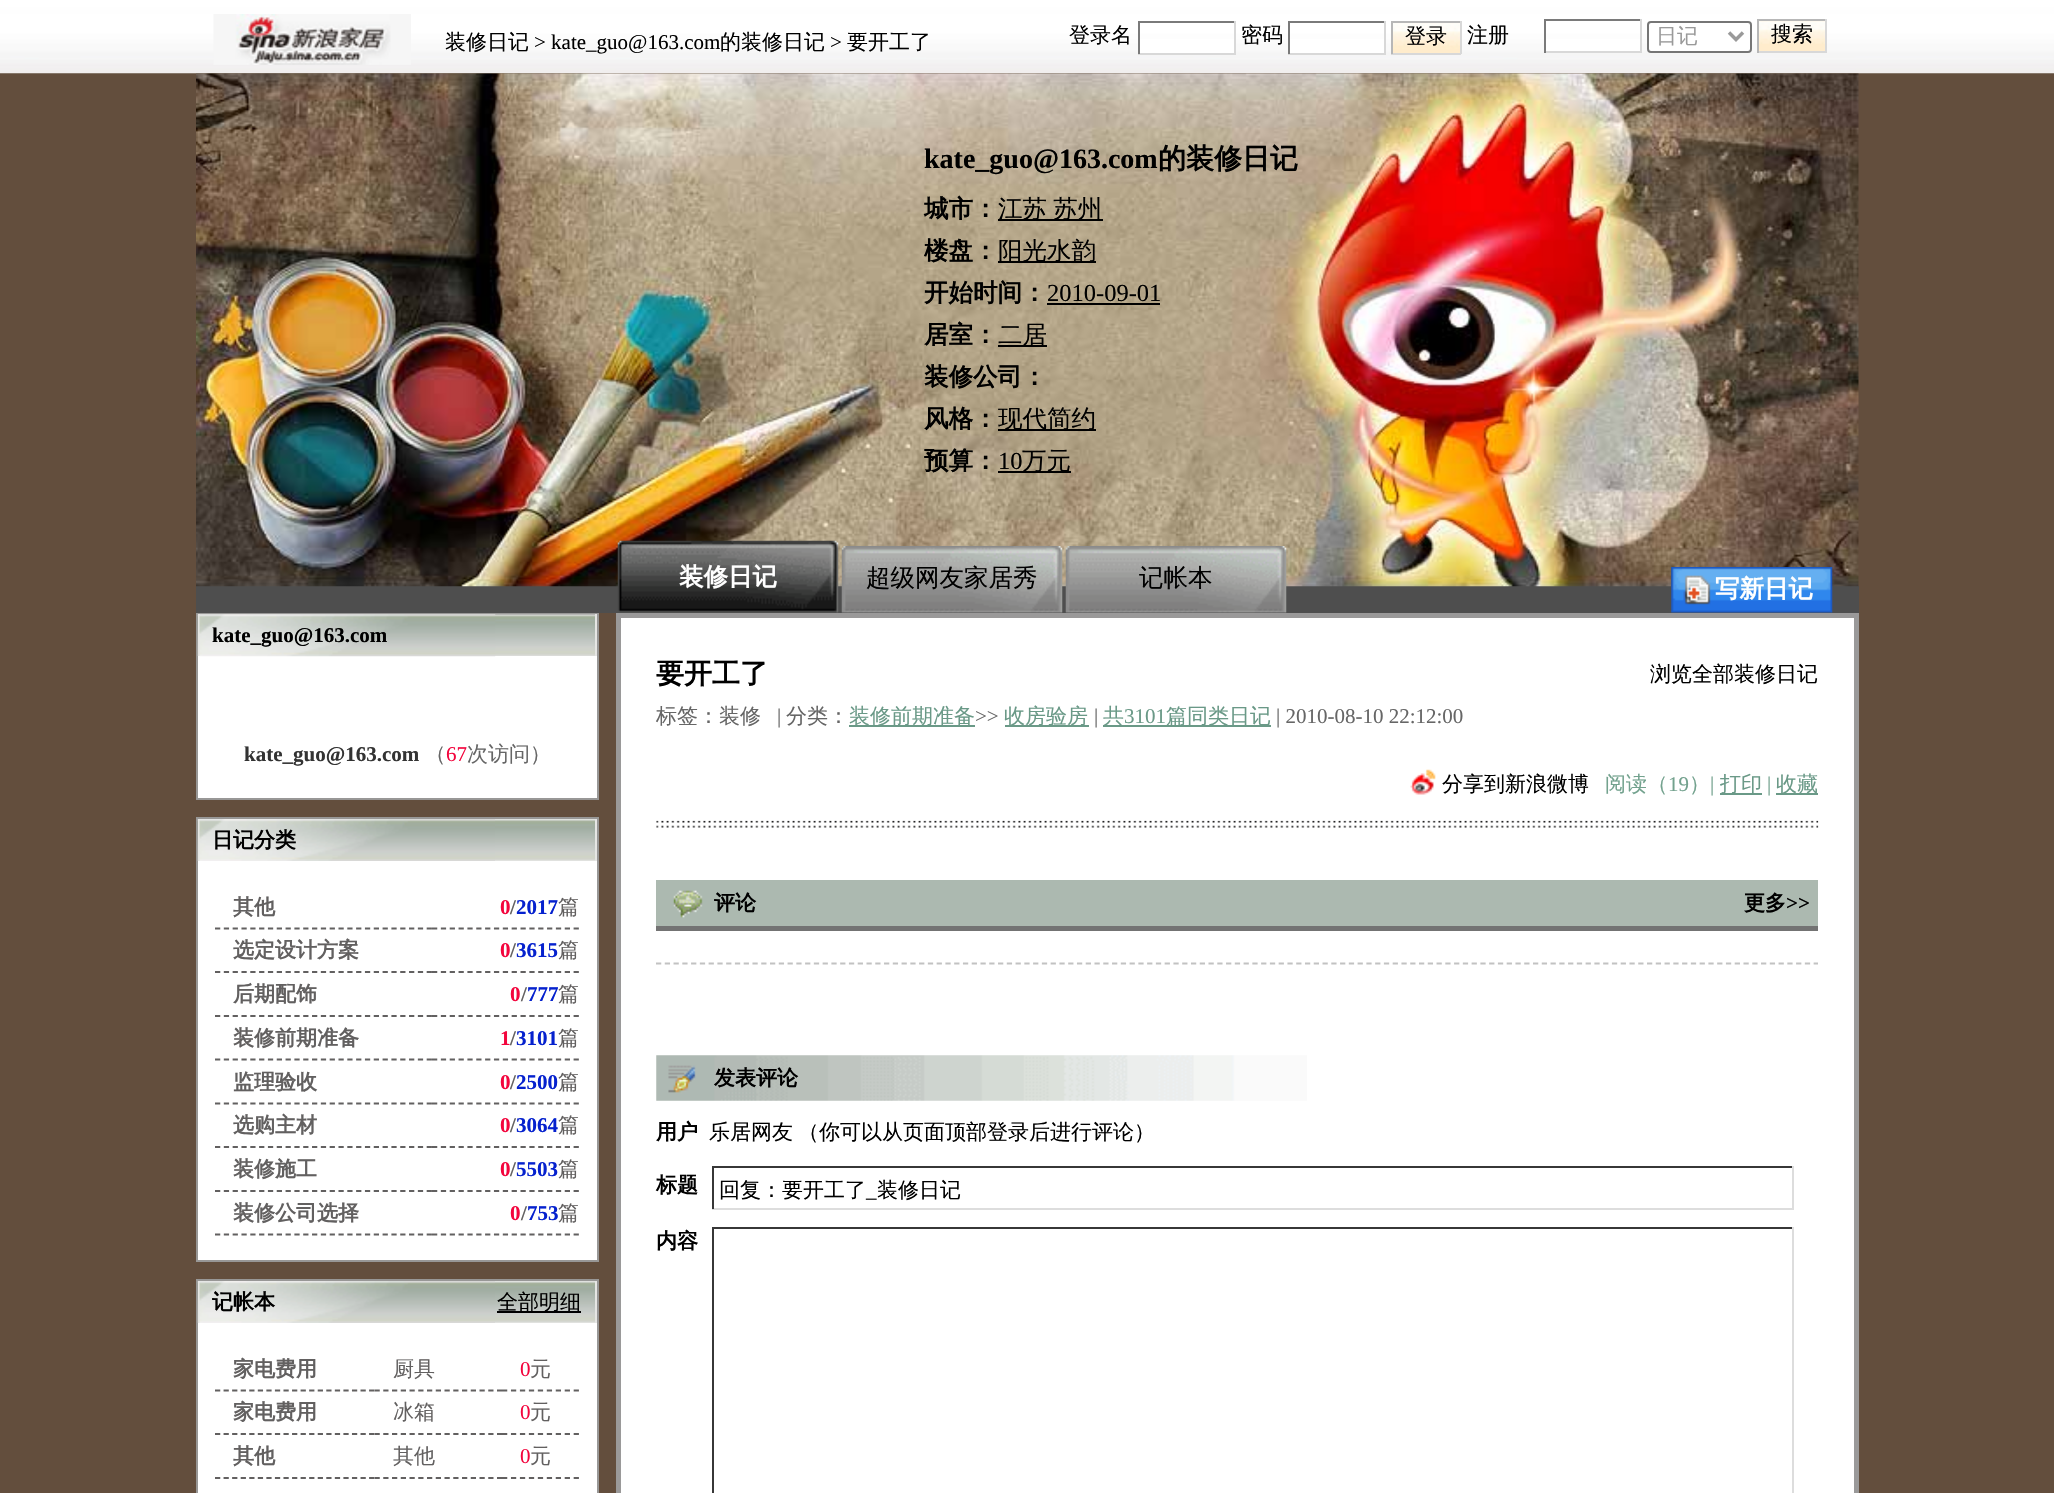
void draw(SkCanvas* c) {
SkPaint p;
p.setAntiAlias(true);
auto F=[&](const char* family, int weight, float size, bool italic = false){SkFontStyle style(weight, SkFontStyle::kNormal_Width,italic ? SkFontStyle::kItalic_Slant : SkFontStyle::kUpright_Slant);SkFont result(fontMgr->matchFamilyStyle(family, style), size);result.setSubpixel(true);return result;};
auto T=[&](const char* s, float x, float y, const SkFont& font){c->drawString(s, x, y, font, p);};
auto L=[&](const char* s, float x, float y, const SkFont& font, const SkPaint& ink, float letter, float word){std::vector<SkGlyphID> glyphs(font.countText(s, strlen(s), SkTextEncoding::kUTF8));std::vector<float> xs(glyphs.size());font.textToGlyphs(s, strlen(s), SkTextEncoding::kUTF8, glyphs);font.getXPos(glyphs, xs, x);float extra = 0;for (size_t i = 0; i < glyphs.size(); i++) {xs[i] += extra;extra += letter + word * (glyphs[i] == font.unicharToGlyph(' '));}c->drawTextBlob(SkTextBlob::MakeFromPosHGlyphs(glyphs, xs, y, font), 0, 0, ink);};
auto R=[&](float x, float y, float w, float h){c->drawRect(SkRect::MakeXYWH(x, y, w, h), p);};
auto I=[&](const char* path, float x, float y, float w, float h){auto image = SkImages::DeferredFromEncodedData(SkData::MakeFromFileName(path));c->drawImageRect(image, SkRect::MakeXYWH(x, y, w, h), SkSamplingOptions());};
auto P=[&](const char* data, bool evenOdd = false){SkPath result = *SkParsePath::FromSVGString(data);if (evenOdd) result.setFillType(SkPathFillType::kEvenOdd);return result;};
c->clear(0xff634e3d);
I("1.png",0,0,2054,74);
I("2.png",213,14,198,51);
auto f1 = F("WenQuanYi Zen Hei",500,21);
p.setColor(0xff000000);
T("装修日记",445,49,f1);
auto f2 = F("Liberation Serif",400,21);
T("> kate_guo@163.com",534,49,f2);
T("的装修日记",720,49,f1);
T(">",830,49,f2);
T("要开工了",847,49,f1);
T("登录名",1069,42,f1);
p.setColor(0xffffffff);
R(1140,39,94,14);
p.setColor(0xff7a7a7a);
R(1138,21,98,2);
p.setColor(0xffd8d8d8);
R(1234,21,2,33);
R(1138,53,98,2);
p.setColor(0xff7a7a7a);
R(1138,21,2,33);
p.setColor(0xff000000);
T("密码",1241,42,f1);
p.setColor(0xffffffff);
R(1290,39,94,14);
p.setColor(0xff7a7a7a);
R(1288,21,98,2);
p.setColor(0xffd8d8d8);
R(1384,21,2,33);
R(1288,53,98,2);
p.setColor(0xff7a7a7a);
R(1288,21,2,33);
p.setColor(0xffffeccc);
R(1393,23,67,30);
I("3.png",1393,23,67,26);
p.setColor(0xffb7b7b7);
R(1391,21,70,2);
p.setColor(0xffd8d8d8);
R(1460,21,2,33);
R(1391,53,70,2);
p.setColor(0xffb7b7b7);
R(1391,21,2,33);
p.setColor(0xff000000);
T("登录",1405,43,f1);
T("注册",1467,42,f1);
p.setColor(0xffffffff);
R(1546,39,94,12);
p.setColor(0xff7a7a7a);
R(1544,19,98,2);
p.setColor(0xffd8d8d8);
R(1640,19,2,34);
R(1544,51,98,2);
p.setColor(0xff7a7a7a);
R(1544,19,2,34);
p.setColor(0xffffffff);
c->drawRoundRect(SkRect::MakeXYWH(1648,22,103,30),3,3,p);
p.setStroke(true);
p.setStrokeWidth(2);
p.setColor(0xff767676);
c->drawRoundRect(SkRect::MakeXYWH(1648,22,103,30),3,3,p);
p.setStrokeWidth(3.5);
p.setColor(0xff9a9a9a);
c->drawPath(P("M1729 32.5l7 7l7-7"),p);
p.setStroke(false);
T("日记",1656,43,f1);
p.setColor(0xffffeccc);
R(1759,21,66,30);
I("4.png",1759,21,66,23);
p.setColor(0xffb7b7b7);
R(1757,19,70,2);
p.setColor(0xffd8d8d8);
R(1825,19,2,34);
R(1757,51,70,2);
p.setColor(0xffb7b7b7);
R(1757,19,2,34);
p.setColor(0xff000000);
T("搜索",1771,41,f1);
p.setColor(0xff4e4e4e);
R(196,586,1663,27);
I("5.png",196,73,1663,514);
auto f3 = F("Liberation Serif",700,28);
p.setColor(0xff000000);
T("kate_guo@163.com",924,168,f3);
auto f4 = F("WenQuanYi Zen Hei",700,28);
T("的装修日记",1158,168,f4);
auto f5 = F("WenQuanYi Zen Hei",700,24.5);
T("城市：",924,217,f5);
R(998,219,105,2);
auto f6 = F("WenQuanYi Zen Hei",500,24.5);
L("江苏 苏州",998,217,f6,p,0,-1);
T("楼盘：",924,259,f5);
R(998,261,98,2);
T("阳光水韵",998,259,f6);
T("开始时间：",924,301,f5);
auto f7 = F("Liberation Serif",400,24.5);
T("2010-09-01",1047,301,f7);
R(1047,303,113,2);
T("居室：",924,343,f5);
R(998,345,49,2);
T("二居",998,343,f6);
T("装修公司：",924,385,f5);
T("风格：",924,427,f5);
R(998,429,98,2);
T("现代简约",998,427,f6);
T("预算：",924,469,f5);
T("10",998,469,f7);
R(998,471,73,2);
T("万元",1022,469,f6);
I("6.png",617,540,222,73);
p.setColor(0xffffffff);
T("装修日记",679,585,f5);
I("7.png",841,546,222,67);
p.setColor(0xff000000);
T("超级网友家居秀",866,586,f6);
I("8.png",1065,546,222,67);
T("记帐本",1139,586,f6);
p.setColor(0xff4d4e4d);
R(1671,567,161,20);
I("9.png",1671,567,162,46);
p.setColor(0xffffffff);
T("写新日记",1715,597,f5);
R(198,655,399,143);
p.setStroke(true);
p.setStrokeWidth(2);
p.setColor(0xff989796);
c->drawRect(SkRect::MakeXYWH(197,614,401,185),p);
I("10.png",197,614,398,42);
p.setStroke(false);
p.setColor(0xffe6e6e4);
R(595,614,2,42);
R(198,614,2,42);
I("11.png",199,614,297,43);
auto f8 = F("Liberation Serif",700,21);
p.setColor(0xff000000);
T("kate_guo@163.com",212,642,f8);
p.setColor(0xff333333);
T("kate_guo@163.com",244,761,f8);
p.setColor(0xff666666);
T("（",425,761,f1);
p.setColor(0xfff3053d);
T("67",446,761,f2);
p.setColor(0xff666666);
T("次访问）",467,761,f1);
p.setColor(0xffffffff);
c->drawRect(SkRect::MakeXYWH(197,818,401,443),p);
p.setStroke(true);
p.setColor(0xff989796);
c->drawRect(SkRect::MakeXYWH(197,818,401,443),p);
I("12.png",197,819,398,42);
p.setStroke(false);
p.setColor(0xffe6e6e4);
R(595,819,2,42);
R(198,819,2,42);
I("13.png",199,819,296,42);
auto f9 = F("WenQuanYi Zen Hei",700,21);
p.setColor(0xff000000);
T("日记分类",212,847,f9);
p.setStroke(true);
p.setStrokeWidth(1.8);
p.setColor(0xff626060);
p.setPathEffect(SkDashPathEffect::Make({{5.25f,3.57f}}, 0));
c->drawPath(P("M215 928.5h217"),p);
p.setPathEffect(nullptr);
p.setStroke(false);
T("其他",233,914,f9);
p.setStroke(true);
p.setPathEffect(SkDashPathEffect::Make({{5.25f,3.6f}}, 0));
c->drawPath(P("M432 928.5h147"),p);
p.setPathEffect(nullptr);
p.setStroke(false);
p.setColor(0xfff3053d);
T("0",500,914,f8);
p.setColor(0xff626060);
T("/",510,914,f8);
p.setColor(0xff0521ce);
T("2017",516,914,f8);
p.setColor(0xff626060);
T("篇",558,914,f1);
p.setStroke(true);
p.setPathEffect(SkDashPathEffect::Make({{5.25f,3.57f}}, 0));
c->drawPath(P("M215 972h217"),p);
p.setPathEffect(nullptr);
p.setStroke(false);
T("选定设计方案",233,957,f9);
p.setStroke(true);
p.setPathEffect(SkDashPathEffect::Make({{5.25f,3.6f}}, 0));
c->drawPath(P("M432 972h147"),p);
p.setPathEffect(nullptr);
p.setStroke(false);
p.setColor(0xfff3053d);
T("0",500,957,f8);
p.setColor(0xff626060);
T("/",510,957,f8);
p.setColor(0xff0521ce);
T("3615",516,957,f8);
p.setColor(0xff626060);
T("篇",558,957,f1);
p.setStroke(true);
p.setPathEffect(SkDashPathEffect::Make({{5.25f,3.57f}}, 0));
c->drawPath(P("M215 1016h217"),p);
p.setPathEffect(nullptr);
p.setStroke(false);
T("后期配饰",233,1001,f9);
p.setStroke(true);
p.setPathEffect(SkDashPathEffect::Make({{5.25f,3.6f}}, 0));
c->drawPath(P("M432 1016h147"),p);
p.setPathEffect(nullptr);
p.setStroke(false);
p.setColor(0xfff3053d);
T("0",510,1001,f8);
p.setColor(0xff626060);
T("/",521,1001,f8);
p.setColor(0xff0521ce);
T("777",527,1001,f8);
p.setColor(0xff626060);
T("篇",558,1001,f1);
p.setStroke(true);
p.setPathEffect(SkDashPathEffect::Make({{5.25f,3.57f}}, 0));
c->drawPath(P("M215 1059.5h217"),p);
p.setPathEffect(nullptr);
p.setStroke(false);
T("装修前期准备",233,1045,f9);
p.setStroke(true);
p.setPathEffect(SkDashPathEffect::Make({{5.25f,3.6f}}, 0));
c->drawPath(P("M432 1059.5h147"),p);
p.setPathEffect(nullptr);
p.setStroke(false);
p.setColor(0xfff3053d);
T("1",500,1045,f8);
p.setColor(0xff626060);
T("/",510,1045,f8);
p.setColor(0xff0521ce);
T("3101",516,1045,f8);
p.setColor(0xff626060);
T("篇",558,1045,f1);
p.setStroke(true);
p.setPathEffect(SkDashPathEffect::Make({{5.25f,3.57f}}, 0));
c->drawPath(P("M215 1103.5h217"),p);
p.setPathEffect(nullptr);
p.setStroke(false);
T("监理验收",233,1089,f9);
p.setStroke(true);
p.setPathEffect(SkDashPathEffect::Make({{5.25f,3.6f}}, 0));
c->drawPath(P("M432 1103.5h147"),p);
p.setPathEffect(nullptr);
p.setStroke(false);
p.setColor(0xfff3053d);
T("0",500,1089,f8);
p.setColor(0xff626060);
T("/",510,1089,f8);
p.setColor(0xff0521ce);
T("2500",516,1089,f8);
p.setColor(0xff626060);
T("篇",558,1089,f1);
p.setStroke(true);
p.setPathEffect(SkDashPathEffect::Make({{5.25f,3.57f}}, 0));
c->drawPath(P("M215 1147h217"),p);
p.setPathEffect(nullptr);
p.setStroke(false);
T("选购主材",233,1132,f9);
p.setStroke(true);
p.setPathEffect(SkDashPathEffect::Make({{5.25f,3.6f}}, 0));
c->drawPath(P("M432 1147h147"),p);
p.setPathEffect(nullptr);
p.setStroke(false);
p.setColor(0xfff3053d);
T("0",500,1132,f8);
p.setColor(0xff626060);
T("/",510,1132,f8);
p.setColor(0xff0521ce);
T("3064",516,1132,f8);
p.setColor(0xff626060);
T("篇",558,1132,f1);
p.setStroke(true);
p.setPathEffect(SkDashPathEffect::Make({{5.25f,3.57f}}, 0));
c->drawPath(P("M215 1191h217"),p);
p.setPathEffect(nullptr);
p.setStroke(false);
T("装修施工",233,1176,f9);
p.setStroke(true);
p.setPathEffect(SkDashPathEffect::Make({{5.25f,3.6f}}, 0));
c->drawPath(P("M432 1191h147"),p);
p.setPathEffect(nullptr);
p.setStroke(false);
p.setColor(0xfff3053d);
T("0",500,1176,f8);
p.setColor(0xff626060);
T("/",510,1176,f8);
p.setColor(0xff0521ce);
T("5503",516,1176,f8);
p.setColor(0xff626060);
T("篇",558,1176,f1);
p.setStroke(true);
p.setPathEffect(SkDashPathEffect::Make({{5.25f,3.57f}}, 0));
c->drawPath(P("M215 1234.5h217"),p);
p.setPathEffect(nullptr);
p.setStroke(false);
T("装修公司选择",233,1220,f9);
p.setStroke(true);
p.setPathEffect(SkDashPathEffect::Make({{5.25f,3.6f}}, 0));
c->drawPath(P("M432 1234.5h147"),p);
p.setPathEffect(nullptr);
p.setStroke(false);
p.setColor(0xfff3053d);
T("0",510,1220,f8);
p.setColor(0xff626060);
T("/",521,1220,f8);
p.setColor(0xff0521ce);
T("753",527,1220,f8);
p.setColor(0xff626060);
T("篇",558,1220,f1);
p.setColor(0xffffffff);
c->drawRect(SkRect::MakeXYWH(197,1280,401,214),p);
p.setStroke(true);
p.setStrokeWidth(2);
p.setColor(0xff989796);
c->drawRect(SkRect::MakeXYWH(197,1280,401,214),p);
I("14.png",197,1281,398,42);
p.setStroke(false);
p.setColor(0xffe6e6e4);
R(595,1281,2,42);
R(198,1281,2,42);
I("13.png",199,1281,296,42);
p.setColor(0xff000000);
T("记帐本",212,1309,f9);
R(497,1311,84,2);
T("全部明细",497,1309,f1);
p.setStroke(true);
p.setStrokeWidth(1.8);
p.setColor(0xff626060);
p.setPathEffect(SkDashPathEffect::Make({{5.25f,3.31f}}, 0));
c->drawPath(P("M215 1390.5h159.5"),p);
p.setPathEffect(nullptr);
p.setStroke(false);
T("家电费用",233,1376,f9);
p.setStroke(true);
p.setPathEffect(SkDashPathEffect::Make({{5.25f,3.5f}}, 0));
c->drawPath(P("M374.5 1390.5h127.5"),p);
p.setPathEffect(nullptr);
p.setStroke(false);
T("厨具",393,1376,f1);
p.setStroke(true);
p.setPathEffect(SkDashPathEffect::Make({{5.25f,3.71f}}, 0));
c->drawPath(P("M502 1390.5h77"),p);
p.setPathEffect(nullptr);
p.setStroke(false);
p.setColor(0xfff3053d);
T("0",520,1376,f2);
p.setColor(0xff626060);
T("元",530,1376,f1);
p.setStroke(true);
p.setPathEffect(SkDashPathEffect::Make({{5.25f,3.31f}}, 0));
c->drawPath(P("M215 1434h159.5"),p);
p.setPathEffect(nullptr);
p.setStroke(false);
T("家电费用",233,1419,f9);
p.setStroke(true);
p.setPathEffect(SkDashPathEffect::Make({{5.25f,3.5f}}, 0));
c->drawPath(P("M374.5 1434h127.5"),p);
p.setPathEffect(nullptr);
p.setStroke(false);
T("冰箱",393,1419,f1);
p.setStroke(true);
p.setPathEffect(SkDashPathEffect::Make({{5.25f,3.71f}}, 0));
c->drawPath(P("M502 1434h77"),p);
p.setPathEffect(nullptr);
p.setStroke(false);
p.setColor(0xfff3053d);
T("0",520,1419,f2);
p.setColor(0xff626060);
T("元",530,1419,f1);
p.setStroke(true);
p.setPathEffect(SkDashPathEffect::Make({{5.25f,3.31f}}, 0));
c->drawPath(P("M215 1478h159.5"),p);
p.setPathEffect(nullptr);
p.setStroke(false);
T("其他",233,1463,f9);
p.setStroke(true);
p.setPathEffect(SkDashPathEffect::Make({{5.25f,3.5f}}, 0));
c->drawPath(P("M374.5 1478h127.5"),p);
p.setPathEffect(nullptr);
p.setStroke(false);
T("其他",393,1463,f1);
p.setStroke(true);
p.setPathEffect(SkDashPathEffect::Make({{5.25f,3.71f}}, 0));
c->drawPath(P("M502 1478h77"),p);
p.setPathEffect(nullptr);
p.setStroke(false);
p.setColor(0xfff3053d);
T("0",520,1463,f2);
p.setColor(0xff626060);
T("元",530,1463,f1);
p.setColor(0xffffffff);
c->drawRect(SkRect::MakeXYWH(618.5,615.5,1238,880),p);
p.setStroke(true);
p.setStrokeWidth(5);
p.setColor(0xff9a9999);
c->drawRect(SkRect::MakeXYWH(618.5,615.5,1238,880),p);
p.setStroke(false);
p.setColor(0xff000000);
T("要开工了",656,683,f4);
T("浏览全部装修日记",1650,681,f1);
p.setColor(0xff666666);
T("标签：装修",656,723,f1);
T("|",777,723,f2);
T("分类：",786,723,f1);
p.setColor(0xff6a9987);
R(849,725,126,2);
T("装修前期准备",849,723,f1);
p.setColor(0xff666666);
T(">>",975,723,f2);
p.setColor(0xff6a9987);
R(1005,725,84,2);
T("收房验房",1004,723,f1);
p.setColor(0xff666666);
T("|",1094,723,f2);
p.setColor(0xff6a9987);
R(1103,725,168,2);
T("共",1103,723,f1);
T("3101",1124,723,f2);
T("篇同类日记",1166,723,f1);
p.setColor(0xff666666);
T("| 2010-08-10 22:12:00",1276,723,f2);
I("15.png",1410,769,26,26);
p.setColor(0xff000000);
T("分享到新浪微博",1442,791,f1);
p.setColor(0xff73a28e);
T("阅读（",1605,791,f1);
T("19",1668,791,f2);
T("）",1689,791,f1);
T("|",1710,791,f2);
p.setColor(0xff6a9987);
R(1720,793,42,2);
T("打印",1720,791,f1);
p.setColor(0xff73a28e);
T("|",1767,791,f2);
p.setColor(0xff6a9987);
R(1776,793,42,2);
T("收藏",1776,791,f1);
I("16.png",656,820,1163,8);
p.setColor(0xffacb9b0);
R(656,880,1162,46);
I("17.png",673,890,30,28);
p.setColor(0xff737373);
R(656,926,1162,5);
p.setColor(0xff000000);
T("评论",714,910,f9);
T("更多",1744,910,f9);
T(">>",1786,910,f8);
p.setStroke(true);
p.setStrokeWidth(1.8);
p.setColor(0xffc2c2c2);
p.setPathEffect(SkDashPathEffect::Make({{5.25f,3.52f}}, 0));
c->drawPath(P("M656 963.5h1162"),p);
p.setPathEffect(nullptr);
I("18.png",656,1055,651,46);
p.setStroke(false);
p.setColor(0xff000000);
T("发表评论",714,1085,f9);
T("用户",656,1139,f9);
T("乐居网友",709,1139,f1);
T("（你可以从页面顶部登录后进行评论）",798,1139,f1);
T("标题",656,1192,f9);
p.setColor(0xff373737);
R(712,1166,1082,2);
p.setColor(0xffdddddd);
R(1792,1166,2,43);
R(712,1208,1082,2);
p.setColor(0xff373737);
R(712,1166,2,43);
p.setColor(0xff000000);
T("回复：要开工了",719,1197,f1);
T("_",866,1197,f2);
T("装修日记",877,1197,f1);
T("内容",656,1248,f9);
p.setColor(0xff373737);
R(712,1227,1082,2);
p.setColor(0xffdddddd);
R(1792,1227,2,266);
p.setColor(0xff373737);
R(712,1227,2,266);
}
